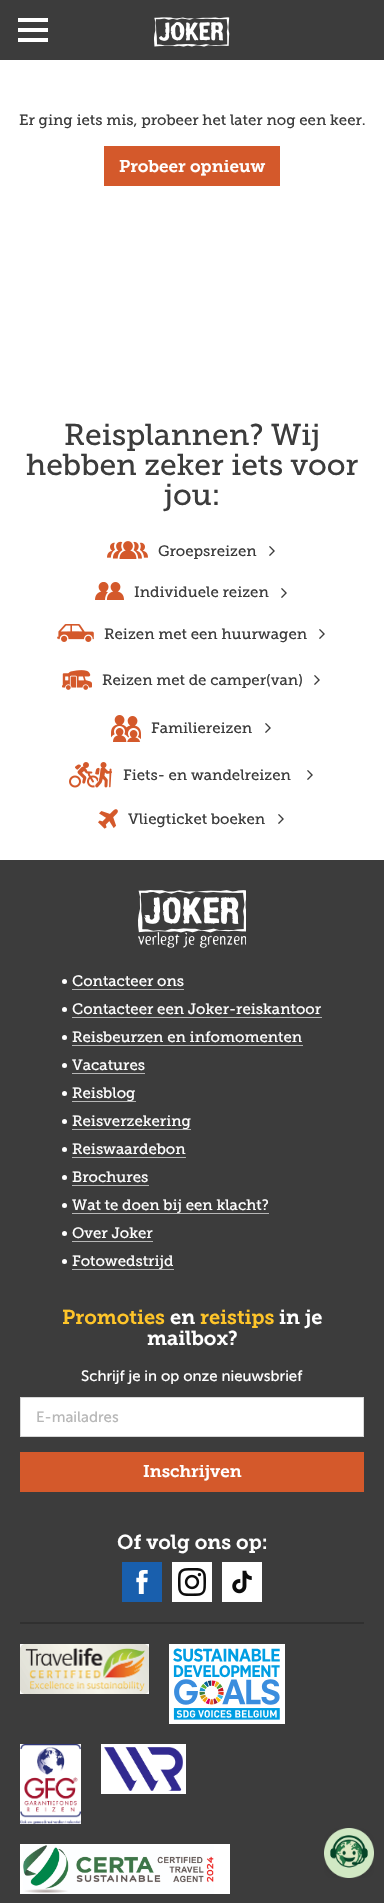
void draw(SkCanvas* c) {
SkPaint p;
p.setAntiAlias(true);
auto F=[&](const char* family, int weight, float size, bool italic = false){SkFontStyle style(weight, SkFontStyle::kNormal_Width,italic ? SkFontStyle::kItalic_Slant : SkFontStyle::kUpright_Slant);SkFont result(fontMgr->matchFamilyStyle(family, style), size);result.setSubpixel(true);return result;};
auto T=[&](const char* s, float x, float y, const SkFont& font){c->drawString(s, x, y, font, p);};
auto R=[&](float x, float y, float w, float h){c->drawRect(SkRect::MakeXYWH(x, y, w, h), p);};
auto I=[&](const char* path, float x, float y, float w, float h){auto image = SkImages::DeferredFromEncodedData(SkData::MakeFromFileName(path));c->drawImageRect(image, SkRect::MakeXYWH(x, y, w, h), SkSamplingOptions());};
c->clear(0xffffffff);
p.setColor(0xff3c3c3c);
R(0,0,384,60);
p.setColor(0xffffffff);
R(18,18,30,4);
R(18,28,30,4);
R(18,38,30,4);
I("1.png",154,17,76,30);
auto f1 = F("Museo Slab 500",400,15);
p.setColor(0xff3c3c3c);
T("Er ging iets mis, probeer het later nog een keer.",19,125,f1);
p.setColor(0xffd4592b);
R(104,146,176,40);
auto f2 = F("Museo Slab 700",600,17);
p.setColor(0xffffffff);
T("Probeer opnieuw",119,172,f2);
auto f3 = F("Museo Slab 500",400,30);
p.setColor(0xff3c3c3c);
T("Reisplannen? Wij",64,445,f3);
T("hebben zeker iets voor",26,475,f3);
T("jou:",164,505,f3);
I("2.png",107,541,41,18);
T("Groepsreizen",158,556,f1);
I("3.png",269,546,6,10);
I("4.png",95,582,29,18);
T("Individuele reizen",134,597,f1);
I("3.png",281,588,6,10);
I("5.png",57,624,37,18);
T("Reizen met een huurwagen",104,639,f1);
I("3.png",319,629,6,10);
I("6.png",62,670,30,20);
T("Reizen met de camper(van)",102,685,f1);
I("3.png",314,675,6,10);
I("7.png",111,715,30,27);
T("Familiereizen",151,733,f1);
I("3.png",265,723,6,10);
I("8.png",69,762,43,26);
T("Fiets- en wandelreizen",123,780,f1);
I("3.png",307,770,6,10);
I("9.png",98,809,20,20);
T("Vliegticket boeken",128,824,f1);
I("3.png",278,814,6,10);
R(0,860,384,1043);
I("10.png",138,890,108,58);
p.setColor(0xffffffff);
c->drawCircle(64.5,981.5,2.5,p);
T("Contacteer ons",72,986,f1);
p.setColor(0xffb7b7b7);
R(72,989,112,1);
p.setColor(0xffffffff);
c->drawCircle(64.5,1009.5,2.5,p);
T("Contacteer een Joker-reiskantoor",72,1014,f1);
p.setColor(0xffb7b7b7);
R(72,1017,250,1);
p.setColor(0xffffffff);
c->drawCircle(64.5,1037.5,2.5,p);
T("Reisbeurzen en infomomenten",72,1042,f1);
p.setColor(0xffb7b7b7);
R(72,1045,231,1);
p.setColor(0xffffffff);
c->drawCircle(64.5,1065.5,2.5,p);
T("Vacatures",72,1070,f1);
p.setColor(0xffb7b7b7);
R(72,1073,73,1);
p.setColor(0xffffffff);
c->drawCircle(64.5,1093.5,2.5,p);
T("Reisblog",72,1098,f1);
p.setColor(0xffb7b7b7);
R(72,1101,64,1);
p.setColor(0xffffffff);
c->drawCircle(64.5,1121.5,2.5,p);
T("Reisverzekering",72,1126,f1);
p.setColor(0xffb7b7b7);
R(72,1129,119,1);
p.setColor(0xffffffff);
c->drawCircle(64.5,1149.5,2.5,p);
T("Reiswaardebon",72,1154,f1);
p.setColor(0xffb7b7b7);
R(72,1157,114,1);
p.setColor(0xffffffff);
c->drawCircle(64.5,1177.5,2.5,p);
T("Brochures",72,1182,f1);
p.setColor(0xffb7b7b7);
R(72,1185,77,1);
p.setColor(0xffffffff);
c->drawCircle(64.5,1205.5,2.5,p);
T("Wat te doen bij een klacht?",72,1210,f1);
p.setColor(0xffb7b7b7);
R(72,1213,197,1);
p.setColor(0xffffffff);
c->drawCircle(64.5,1233.5,2.5,p);
T("Over Joker",72,1238,f1);
p.setColor(0xffb7b7b7);
R(72,1241,81,1);
p.setColor(0xffffffff);
c->drawCircle(64.5,1261.5,2.5,p);
T("Fotowedstrijd",72,1266,f1);
p.setColor(0xffb7b7b7);
R(72,1269,102,1);
auto f4 = F("Museo Slab 700",600,20);
p.setColor(0xffffc529);
T("Promoties",62,1324,f4);
p.setColor(0xffffffff);
T("en",170,1324,f4);
p.setColor(0xffffc529);
T("reistips",200,1324,f4);
p.setColor(0xffffffff);
T("in je",279,1324,f4);
T("mailbox?",147,1345,f4);
auto f5 = F("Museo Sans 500",400,15);
T("Schrijf je in op onze nieuwsbrief",81,1381,f5);
c->drawRect(SkRect::MakeXYWH(20.5,1397.5,343,39),p);
p.setStroke(true);
p.setStrokeWidth(1);
p.setColor(0xffd7d7d7);
c->drawRect(SkRect::MakeXYWH(20.5,1397.5,343,39),p);
p.setStroke(false);
p.setColor(0xffb7b7b7);
T("E-mailadres",36,1422,f5);
p.setColor(0xffd4592b);
R(20,1452,344,40);
p.setColor(0xffffffff);
T("Inschrijven",143,1477,f2);
T("Of volg ons op:",117,1549,f4);
p.setColor(0xff195fad);
R(122,1562,40,40);
I("11.png",136,1570,12,24);
p.setColor(0xffffffff);
R(172,1562,40,40);
I("12.png",178,1568,28,28);
R(222,1562,40,40);
I("13.png",232,1570,20,24);
p.setColor(0xff303030);
R(20,1622,344,2);
p.setColor(0xffffffff);
R(20,1644,129,50);
I("14.png",20,1644,129,50);
R(169,1644,116,80);
I("15.png",173,1648,107,72);
I("16.png",20,1744,61,80);
R(101,1744,85,50);
I("17.png",104,1747,79,44);
R(20,1844,210,50);
I("18.png",23,1845,191,49);
I("19.png",324,1828,50,50);
}
